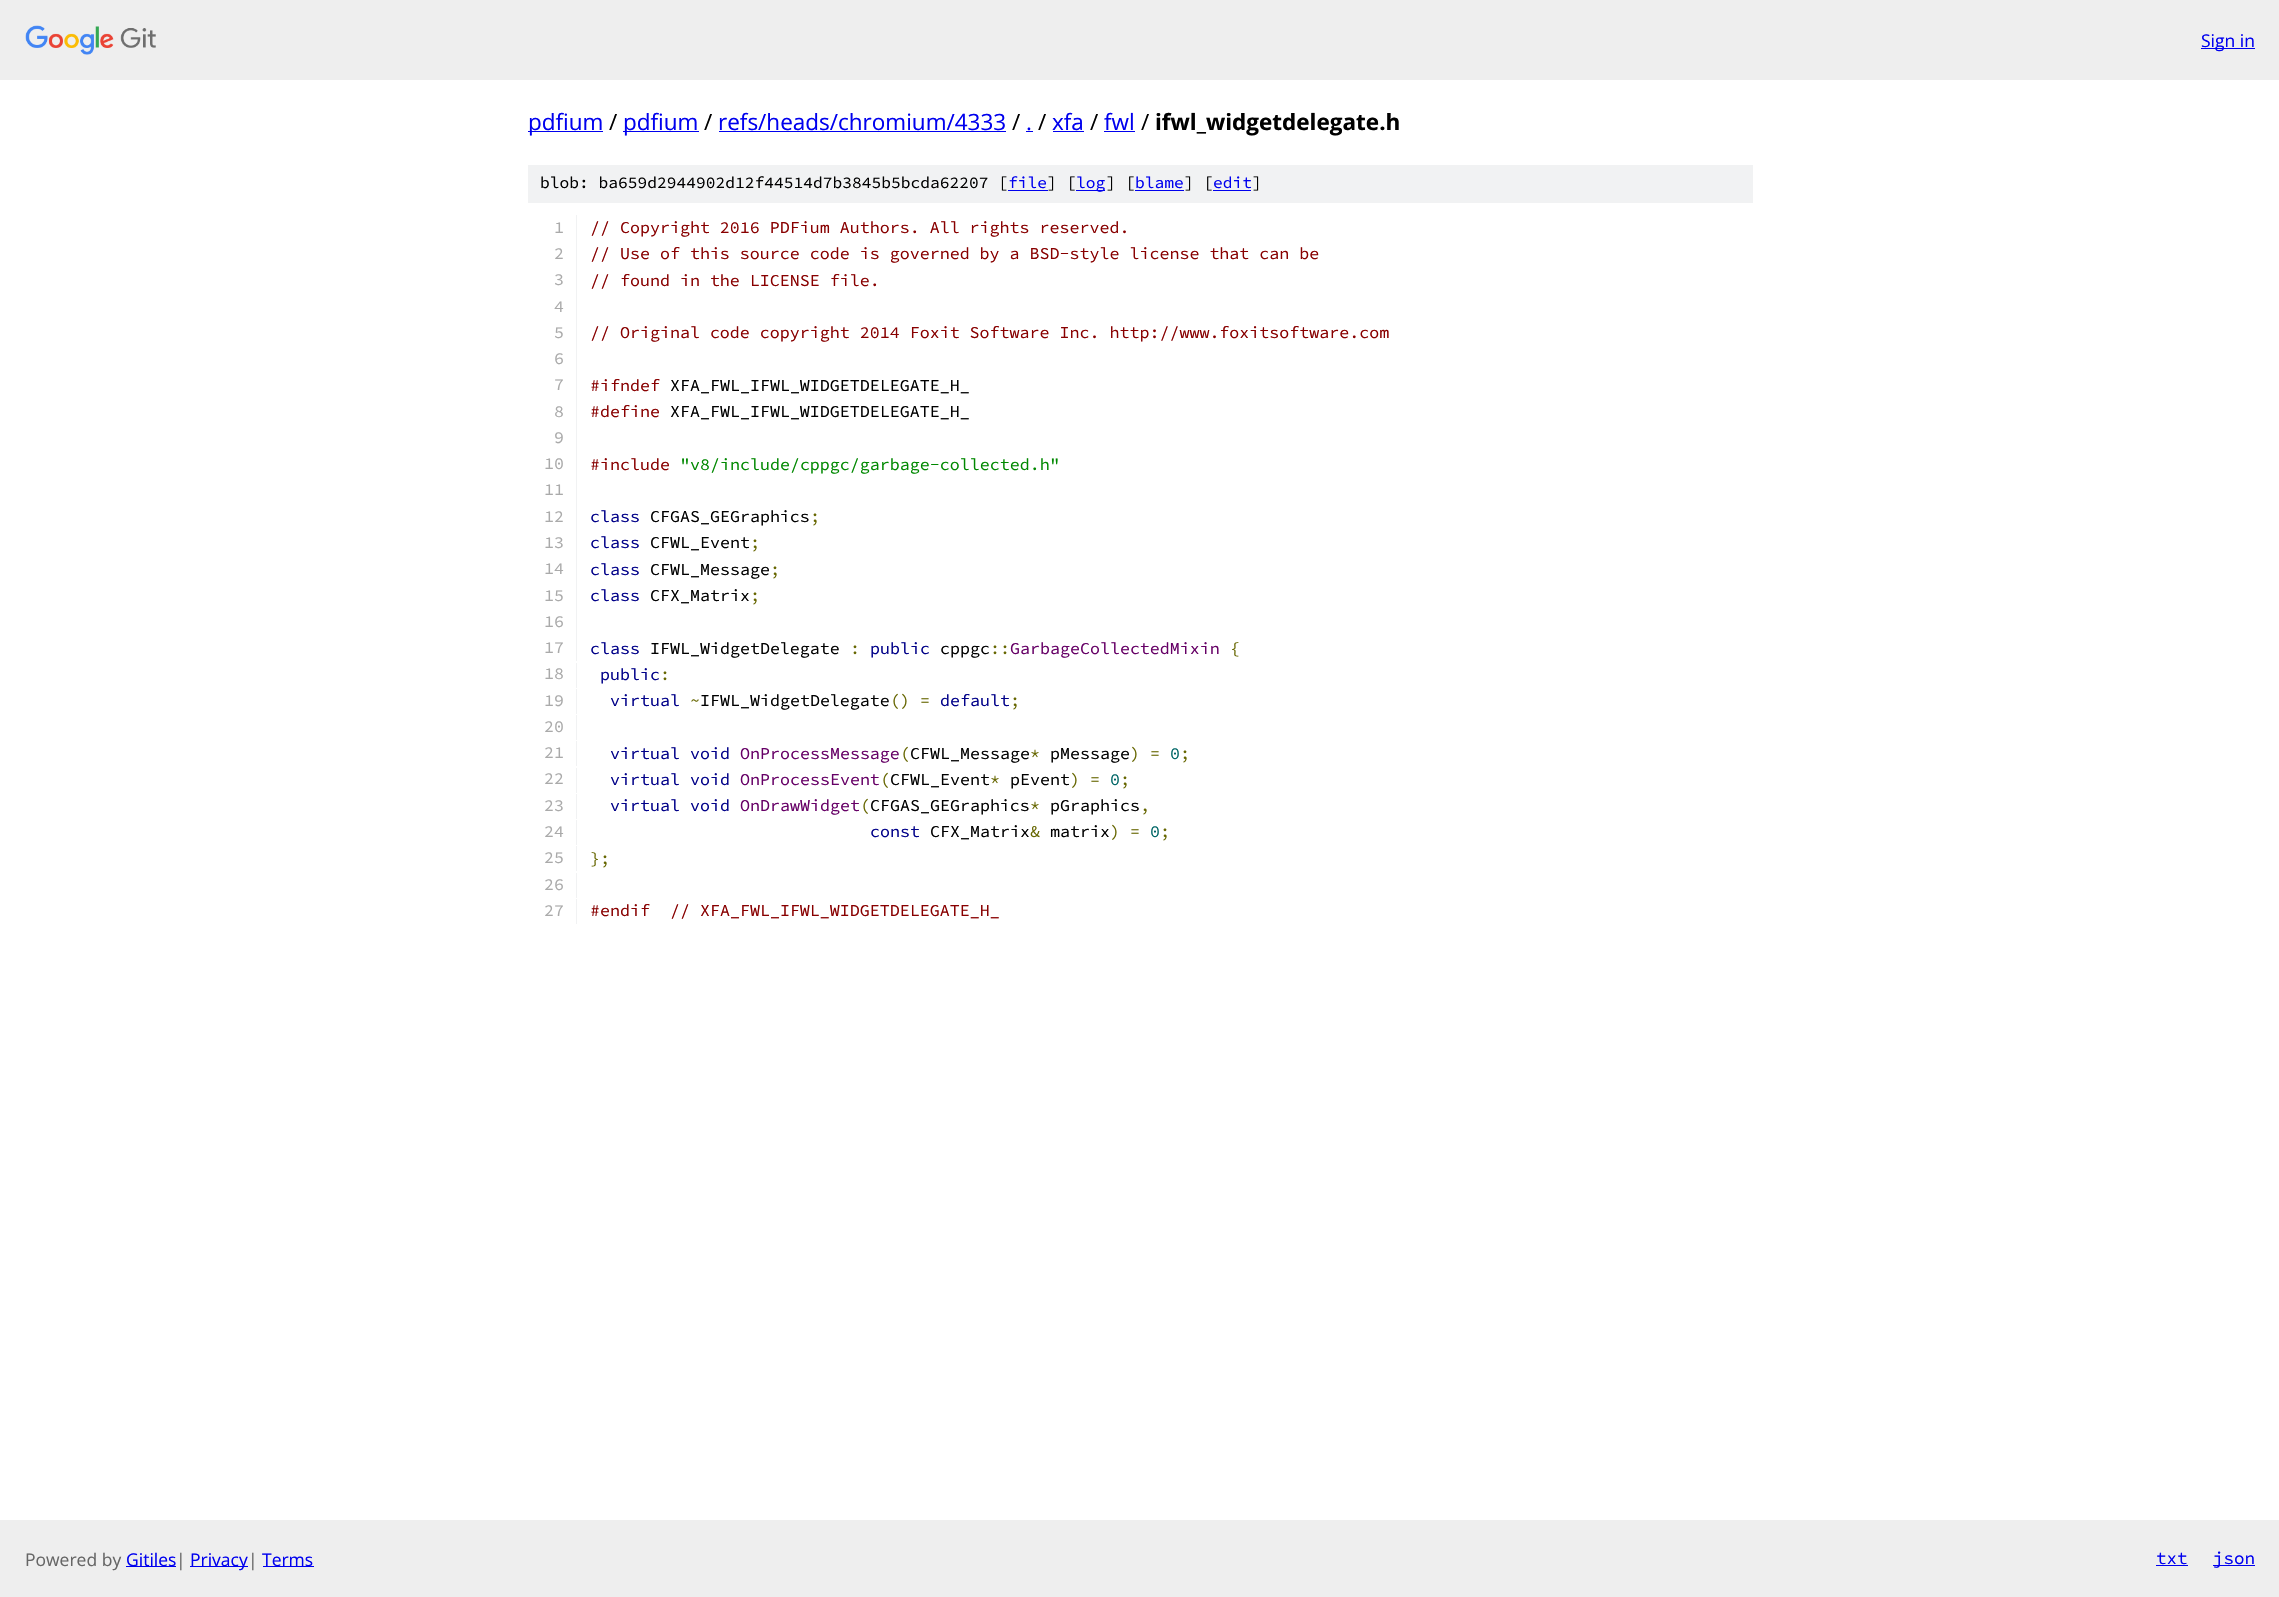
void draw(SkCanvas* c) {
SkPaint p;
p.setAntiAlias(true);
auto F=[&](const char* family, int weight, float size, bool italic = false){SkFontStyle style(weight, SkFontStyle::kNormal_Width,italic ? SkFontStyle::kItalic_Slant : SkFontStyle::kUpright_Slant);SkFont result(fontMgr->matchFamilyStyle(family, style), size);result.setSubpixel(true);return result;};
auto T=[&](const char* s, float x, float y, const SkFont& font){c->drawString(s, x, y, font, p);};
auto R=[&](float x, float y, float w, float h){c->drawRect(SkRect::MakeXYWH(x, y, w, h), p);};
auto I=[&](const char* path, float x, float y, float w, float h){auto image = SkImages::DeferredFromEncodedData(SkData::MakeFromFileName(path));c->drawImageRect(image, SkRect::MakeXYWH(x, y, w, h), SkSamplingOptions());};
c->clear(0xffffffff);
p.setColor(0xffeeeeee);
R(0,0,2279,80);
I("1.png",25,25,131,30);
p.setColor(0xff0000ee);
R(2201,48,54,1);
auto f1 = F("Open Sans",400,17.5);
T("Sign in",2201,47,f1);
R(528,131,75,1);
auto f2 = F("Open Sans",400,22.5);
T("pdfium",528,130,f2);
p.setColor(0xff000000);
T("/",609,130,f2);
p.setColor(0xff0000ee);
R(623,131,76,1);
T("pdfium",623,130,f2);
p.setColor(0xff000000);
T("/",704,130,f2);
p.setColor(0xff0000ee);
T("refs/heads/chromium/4333",718,130,f2);
R(719,131,287,1);
p.setColor(0xff000000);
T("/",1012,130,f2);
p.setColor(0xff0000ee);
T(".",1026,130,f2);
R(1026,131,7,1);
p.setColor(0xff000000);
T("/",1038,130,f2);
p.setColor(0xff0000ee);
T("xfa",1052,130,f2);
R(1053,131,31,1);
p.setColor(0xff000000);
T("/",1090,130,f2);
p.setColor(0xff0000ee);
T("fwl",1104,130,f2);
R(1104,131,31,1);
p.setColor(0xff000000);
T("/",1141,130,f2);
auto f3 = F("Open Sans",700,22.5);
T("ifwl_widgetdelegate.h",1155,130,f3);
p.setColor(0xfff1f2f3);
R(528,165,1225,38);
auto f4 = F("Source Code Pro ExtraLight",200,16.25);
p.setColor(0xff000000);
T("blob: ba659d2944902d12f44514d7b3845b5bcda62207 [",540,188,f4);
p.setColor(0xff0000ee);
T("file",1008,188,f4);
R(1008,190,40,1);
p.setColor(0xff000000);
T("] [",1047,188,f4);
p.setColor(0xff0000ee);
R(1076,190,29,1);
T("log",1076,188,f4);
p.setColor(0xff000000);
T("] [",1106,188,f4);
p.setColor(0xff0000ee);
T("blame",1135,188,f4);
R(1135,190,49,1);
p.setColor(0xff000000);
T("] [",1184,188,f4);
p.setColor(0xff0000ee);
T("edit",1213,188,f4);
R(1213,190,38,1);
p.setColor(0xff000000);
T("]",1252,188,f4);
p.setColor(0xfff1f2f3);
R(576,215,1,446);
auto f5 = F("Source Code Pro ExtraLight",200,16.65);
p.setColor(0xffaaaaaa);
T("1",554,233,f5);
p.setColor(0xff880000);
T("// Copyright 2016 PDFium Authors. All rights reserved.",590,233,f5);
p.setColor(0xffaaaaaa);
T("2",554,259,f5);
p.setColor(0xff880000);
T("// Use of this source code is governed by a BSD-style license that can be",590,259,f5);
p.setColor(0xffaaaaaa);
T("3",554,285,f5);
p.setColor(0xff880000);
T("// found in the LICENSE file.",590,286,f5);
p.setColor(0xffaaaaaa);
T("4",554,312,f5);
T("5",554,338,f5);
p.setColor(0xff880000);
T("// Original code copyright 2014 Foxit Software Inc. http://www.foxitsoftware.com",590,338,f5);
p.setColor(0xffaaaaaa);
T("6",554,364,f5);
T("7",554,390,f5);
p.setColor(0xff880000);
T("#ifndef",590,391,f5);
p.setColor(0xff000000);
T("XFA_FWL_IFWL_WIDGETDELEGATE_H_",670,391,f5);
p.setColor(0xffaaaaaa);
T("8",554,417,f5);
p.setColor(0xff880000);
T("#define",590,417,f5);
p.setColor(0xff000000);
T("XFA_FWL_IFWL_WIDGETDELEGATE_H_",670,417,f5);
p.setColor(0xffaaaaaa);
T("9",554,443,f5);
T("10",544,469,f5);
p.setColor(0xff880000);
T("#include",590,470,f5);
p.setColor(0xff008800);
T("\"v8/include/cppgc/garbage-collected.h\"",680,470,f5);
p.setColor(0xffaaaaaa);
T("11",544,495,f5);
T("12",544,522,f5);
p.setColor(0xff000088);
T("class",590,522,f5);
p.setColor(0xff000000);
T("CFGAS_GEGraphics",650,522,f5);
p.setColor(0xff666600);
T(";",810,522,f5);
p.setColor(0xffaaaaaa);
T("13",544,548,f5);
p.setColor(0xff000088);
T("class",590,548,f5);
p.setColor(0xff000000);
T("CFWL_Event",650,548,f5);
p.setColor(0xff666600);
T(";",750,548,f5);
p.setColor(0xffaaaaaa);
T("14",544,574,f5);
p.setColor(0xff000088);
T("class",590,575,f5);
p.setColor(0xff000000);
T("CFWL_Message",650,575,f5);
p.setColor(0xff666600);
T(";",770,575,f5);
p.setColor(0xffaaaaaa);
T("15",544,601,f5);
p.setColor(0xff000088);
T("class",590,601,f5);
p.setColor(0xff000000);
T("CFX_Matrix",650,601,f5);
p.setColor(0xff666600);
T(";",750,601,f5);
p.setColor(0xffaaaaaa);
T("16",544,627,f5);
T("17",544,653,f5);
p.setColor(0xff000088);
T("class",590,654,f5);
p.setColor(0xff000000);
T("IFWL_WidgetDelegate",650,654,f5);
p.setColor(0xff666600);
T(":",850,654,f5);
p.setColor(0xff000088);
T("public",870,654,f5);
p.setColor(0xff000000);
T("cppgc",940,654,f5);
p.setColor(0xff666600);
T("::",990,654,f5);
p.setColor(0xff660066);
T("GarbageCollectedMixin",1010,654,f5);
p.setColor(0xff666600);
T("{",1230,654,f5);
p.setColor(0xfff1f2f3);
R(576,663,1,25);
p.setColor(0xffaaaaaa);
T("18",544,679,f5);
p.setColor(0xff000088);
T("public",600,680,f5);
p.setColor(0xff666600);
T(":",660,680,f5);
p.setColor(0xfff1f2f3);
R(576,689,1,25);
p.setColor(0xffaaaaaa);
T("19",544,706,f5);
p.setColor(0xff000088);
T("virtual",610,706,f5);
p.setColor(0xff666600);
T("~",690,706,f5);
p.setColor(0xff000000);
T("IFWL_WidgetDelegate",700,706,f5);
p.setColor(0xff666600);
T("() =",890,706,f5);
p.setColor(0xff000088);
T("default",940,706,f5);
p.setColor(0xff666600);
T(";",1010,706,f5);
p.setColor(0xfff1f2f3);
R(576,715,1,25);
p.setColor(0xffaaaaaa);
T("20",544,732,f5);
p.setColor(0xfff1f2f3);
R(576,741,1,25);
p.setColor(0xffaaaaaa);
T("21",544,758,f5);
p.setColor(0xff000088);
T("virtual void",610,759,f5);
p.setColor(0xff660066);
T("OnProcessMessage",740,759,f5);
p.setColor(0xff666600);
T("(",900,759,f5);
p.setColor(0xff000000);
T("CFWL_Message",910,759,f5);
p.setColor(0xff666600);
T("*",1030,759,f5);
p.setColor(0xff000000);
T("pMessage",1050,759,f5);
p.setColor(0xff666600);
T(") =",1130,759,f5);
p.setColor(0xff006666);
T("0",1170,759,f5);
p.setColor(0xff666600);
T(";",1180,759,f5);
p.setColor(0xfff1f2f3);
R(576,768,1,25);
p.setColor(0xffaaaaaa);
T("22",544,784,f5);
p.setColor(0xff000088);
T("virtual void",610,785,f5);
p.setColor(0xff660066);
T("OnProcessEvent",740,785,f5);
p.setColor(0xff666600);
T("(",880,785,f5);
p.setColor(0xff000000);
T("CFWL_Event",890,785,f5);
p.setColor(0xff666600);
T("*",990,785,f5);
p.setColor(0xff000000);
T("pEvent",1010,785,f5);
p.setColor(0xff666600);
T(") =",1070,785,f5);
p.setColor(0xff006666);
T("0",1110,785,f5);
p.setColor(0xff666600);
T(";",1120,785,f5);
p.setColor(0xfff1f2f3);
R(576,794,1,25);
p.setColor(0xffaaaaaa);
T("23",544,811,f5);
p.setColor(0xff000088);
T("virtual void",610,811,f5);
p.setColor(0xff660066);
T("OnDrawWidget",740,811,f5);
p.setColor(0xff666600);
T("(",860,811,f5);
p.setColor(0xff000000);
T("CFGAS_GEGraphics",870,811,f5);
p.setColor(0xff666600);
T("*",1030,811,f5);
p.setColor(0xff000000);
T("pGraphics",1050,811,f5);
p.setColor(0xff666600);
T(",",1140,811,f5);
p.setColor(0xfff1f2f3);
R(576,820,1,25);
p.setColor(0xffaaaaaa);
T("24",544,837,f5);
p.setColor(0xff000088);
T("const",870,837,f5);
p.setColor(0xff000000);
T("CFX_Matrix",930,837,f5);
p.setColor(0xff666600);
T("&",1030,837,f5);
p.setColor(0xff000000);
T("matrix",1050,837,f5);
p.setColor(0xff666600);
T(") =",1110,837,f5);
p.setColor(0xff006666);
T("0",1150,837,f5);
p.setColor(0xff666600);
T(";",1160,837,f5);
p.setColor(0xfff1f2f3);
R(576,846,1,25);
p.setColor(0xffaaaaaa);
T("25",544,863,f5);
p.setColor(0xff666600);
T("};",590,864,f5);
p.setColor(0xfff1f2f3);
R(576,873,1,25);
p.setColor(0xffaaaaaa);
T("26",544,890,f5);
p.setColor(0xfff1f2f3);
R(576,899,1,25);
p.setColor(0xffaaaaaa);
T("27",544,916,f5);
p.setColor(0xff880000);
T("#endif",590,916,f5);
T("// XFA_FWL_IFWL_WIDGETDELEGATE_H_",670,916,f5);
p.setColor(0xffeeeeee);
R(0,1520,2279,77);
p.setColor(0xff666666);
T("Powered by",25,1566,f1);
p.setColor(0xff0000ee);
R(126,1566,50,1);
T("Gitiles",126,1566,f1);
p.setColor(0xff666666);
T("|",176,1566,f1);
p.setColor(0xff0000ee);
R(190,1566,58,1);
T("Privacy",190,1566,f1);
p.setColor(0xff666666);
T("|",248,1566,f1);
p.setColor(0xff0000ee);
R(263,1566,51,1);
T("Terms",262,1566,f1);
auto f6 = F("Source Code Pro ExtraLight",200,17.5);
T("txt",2156,1564,f6);
R(2156,1565,32,1);
R(2213,1565,42,1);
T("json",2213,1564,f6);
}
